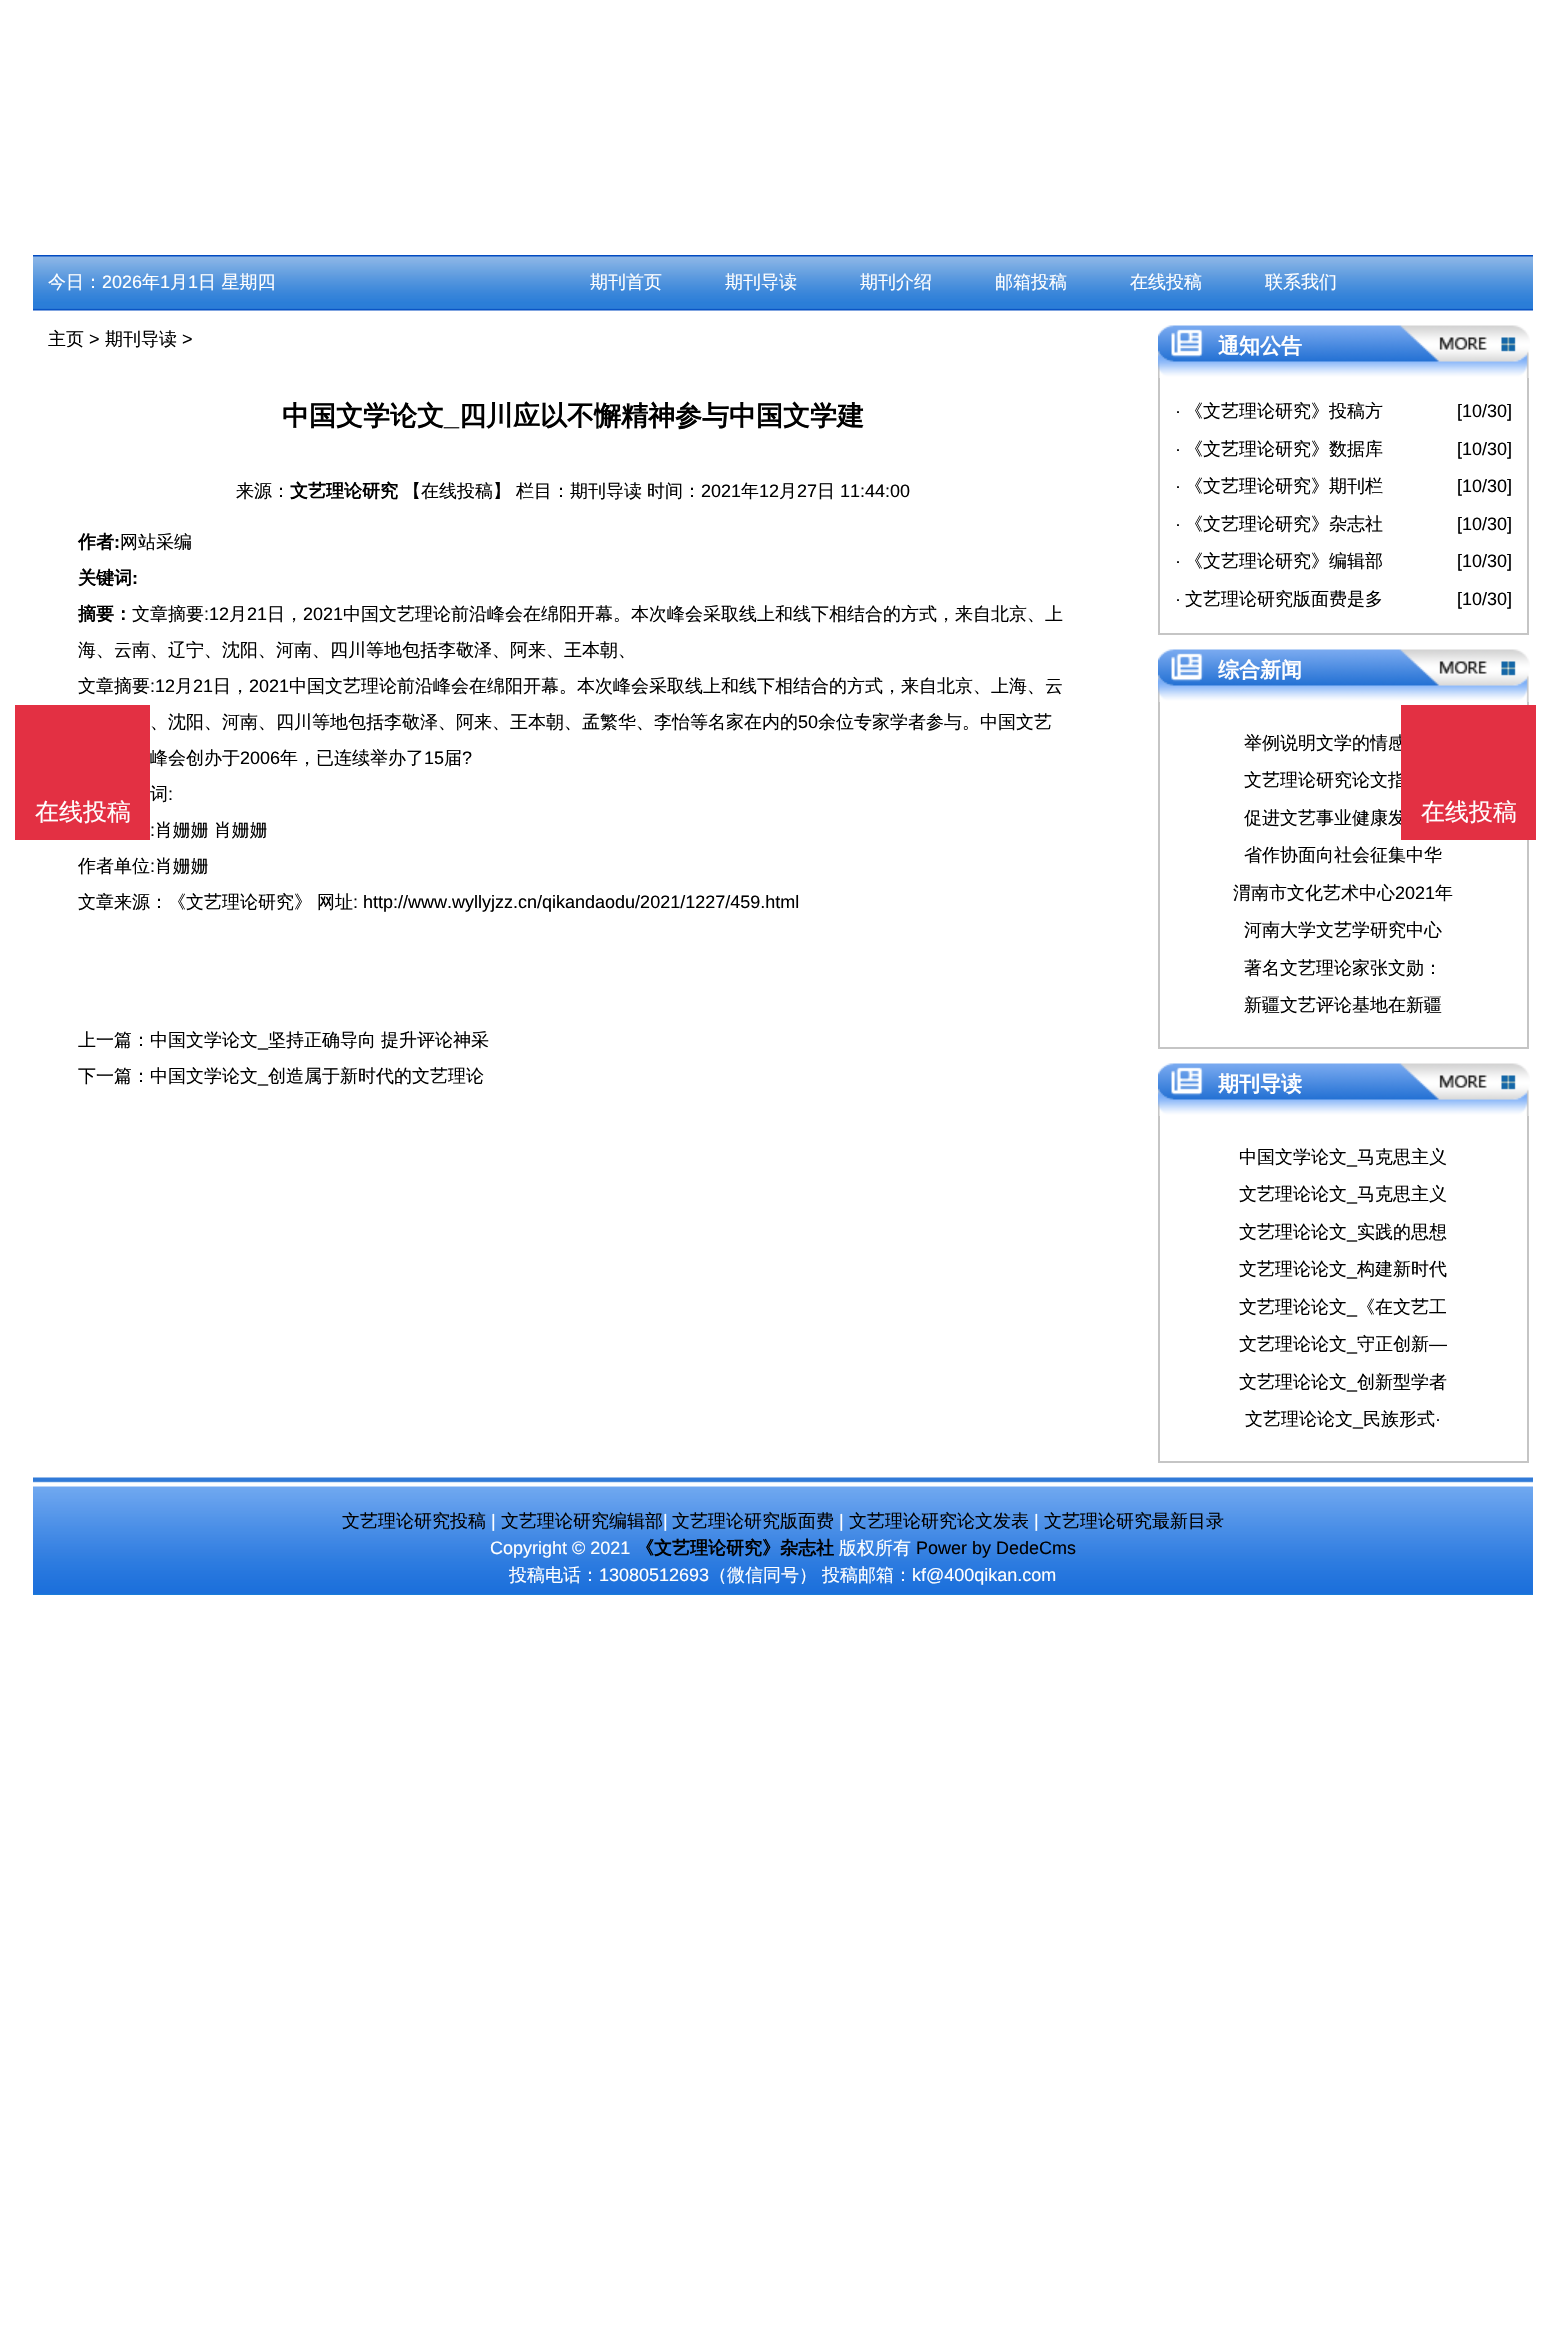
void draw(SkCanvas* c) {
SkPaint p;
p.setAntiAlias(true);
auto F=[&](const char* family, int weight, float size, bool italic = false){SkFontStyle style(weight, SkFontStyle::kNormal_Width,italic ? SkFontStyle::kItalic_Slant : SkFontStyle::kUpright_Slant);SkFont result(fontMgr->matchFamilyStyle(family, style), size);result.setSubpixel(true);return result;};
auto T=[&](const char* s, float x, float y, const SkFont& font){c->drawString(s, x, y, font, p);};
auto R=[&](float x, float y, float w, float h){c->drawRect(SkRect::MakeXYWH(x, y, w, h), p);};
auto I=[&](const char* path, float x, float y, float w, float h){auto image = SkImages::DeferredFromEncodedData(SkData::MakeFromFileName(path));c->drawImageRect(image, SkRect::MakeXYWH(x, y, w, h), SkSamplingOptions());};
c->clear(0xffffffff);
I("1.png",33,255,1500,56);
auto f1 = F("WenQuanYi Zen Hei",500,18);
p.setColor(0xffffffff);
T("今日：",48,288,f1);
auto f2 = F("Liberation Sans",400,18);
T("2026",102,288,f2);
T("年",142,288,f1);
T("1",160,288,f2);
T("月",170,288,f1);
T("1",188,288,f2);
T("日 星期四",198,288,f1);
T("期刊首页",590,288,f1);
T("期刊导读",725,288,f1);
T("期刊介绍",860,288,f1);
T("邮箱投稿",995,288,f1);
T("在线投稿",1130,288,f1);
T("联系我们",1265,288,f1);
p.setColor(0xff000000);
T("主页",48,345,f1);
T(">",89,345,f2);
T("期刊导读",105,345,f1);
T(">",182,345,f2);
auto f3 = F("WenQuanYi Zen Hei",700,27);
T("中国文学论文",282,425,f3);
auto f4 = F("Liberation Sans",700,27);
T("_",444,425,f4);
T("四川应以不懈精神参与中国文学建",459,425,f3);
T("来源：",236,497,f1);
auto f5 = F("WenQuanYi Zen Hei",700,18);
T("文艺理论研究",290,497,f5);
T("【在线投稿】",403,497,f1);
T("栏目：期刊导读",516,497,f1);
T("时间：",647,497,f1);
T("2021",701,497,f2);
T("年",741,497,f1);
T("12",759,497,f2);
T("月",779,497,f1);
T("27",797,497,f2);
T("日",817,497,f1);
T("11:44:00",840,497,f2);
T("作者",78,548,f5);
auto f6 = F("Liberation Sans",700,18);
T(":",114,548,f6);
T("网站采编",120,548,f1);
T("关键词",78,584,f5);
T(":",132,584,f6);
T("摘要：",78,620,f5);
T("文章摘要",132,620,f1);
T(":12",204,620,f2);
T("月",229,620,f1);
T("21",247,620,f2);
T("日，",267,620,f1);
T("2021",303,620,f2);
T("中国文艺理论前沿峰会在绵阳开幕。本次峰会采取线上和线下相结合的方式，来自北京、上",343,620,f1);
T("海、云南、辽宁、沈阳、河南、四川等地包括李敬泽、阿来、王本朝、",78,656,f1);
T("文章摘要",78,692,f1);
T(":12",150,692,f2);
T("月",175,692,f1);
T("21",193,692,f2);
T("日，",213,692,f1);
T("2021",249,692,f2);
T("中国文艺理论前沿峰会在绵阳开幕。本次峰会采取线上和线下相结合的方式，来自北京、上海、云",289,692,f1);
T("、沈阳、河南、四川等地包括李敬泽、阿来、王本朝、孟繁华、李怡等名家在内的",150,728,f1);
T("50",798,728,f2);
T("余位专家学者参与。中国文艺",818,728,f1);
T("峰会创办于",150,764,f1);
T("2006",240,764,f2);
T("年，已连续举办了",280,764,f1);
T("15",424,764,f2);
T("届",444,764,f1);
T("?",462,764,f2);
T("词",150,800,f1);
T(":",168,800,f2);
T(":",150,836,f2);
T("肖姗姗",155,836,f1);
T("肖姗姗",214,836,f1);
T("作者单位",78,872,f1);
T(":",150,872,f2);
T("肖姗姗",155,872,f1);
T("文章来源：《文艺理论研究》",78,908,f1);
T("网址",317,908,f1);
T(": http://www.wyllyjzz.cn/qikandaodu/2021/1227/459.html",353,908,f2);
T("上一篇：中国文学论文",78,1046,f1);
T("_",258,1046,f2);
T("坚持正确导向",268,1046,f1);
T("提升评论神采",381,1046,f1);
T("下一篇：中国文学论文",78,1082,f1);
T("_",258,1082,f2);
T("创造属于新时代的文艺理论",268,1082,f1);
I("2.png",1158,325,372,53);
auto f7 = F("WenQuanYi Zen Hei",700,21);
p.setColor(0xffffffff);
T("通知公告",1218,353,f7);
p.setColor(0xffc5c5c5);
R(1527,378,2,257);
R(1158,633,371,2);
R(1158,378,2,257);
p.setColor(0xff000000);
T("·",1175,417,f2);
T("《文艺理论研究》投稿方",1185,417,f1);
T("[10/30]",1457,417,f2);
T("·",1175,455,f2);
T("《文艺理论研究》数据库",1185,455,f1);
T("[10/30]",1457,455,f2);
T("·",1175,492,f2);
T("《文艺理论研究》期刊栏",1185,492,f1);
T("[10/30]",1457,492,f2);
T("·",1175,530,f2);
T("《文艺理论研究》杂志社",1185,530,f1);
T("[10/30]",1457,530,f2);
T("·",1175,567,f2);
T("《文艺理论研究》编辑部",1185,567,f1);
T("[10/30]",1457,567,f2);
T("·",1175,605,f2);
T("文艺理论研究版面费是多",1185,605,f1);
T("[10/30]",1457,605,f2);
I("2.png",1158,649,372,53);
p.setColor(0xffffffff);
T("综合新闻",1218,677,f7);
p.setColor(0xffc5c5c5);
R(1527,702,2,347);
R(1158,1047,371,2);
R(1158,702,2,347);
p.setColor(0xff000000);
T("举例说明文学的情感",1244,749,f1);
T("文艺理论研究论文指",1244,786,f1);
T("促进文艺事业健康发",1244,824,f1);
T("省作协面向社会征集中华",1244,861,f1);
T("渭南市文化艺术中心",1233,899,f1);
T("2021",1395,899,f2);
T("年",1435,899,f1);
T("河南大学文艺学研究中心",1244,936,f1);
T("著名文艺理论家张文勋：",1244,974,f1);
T("新疆文艺评论基地在新疆",1244,1011,f1);
I("2.png",1158,1063,372,53);
p.setColor(0xffffffff);
T("期刊导读",1218,1091,f7);
p.setColor(0xffc5c5c5);
R(1527,1116,2,347);
R(1158,1461,371,2);
R(1158,1116,2,347);
p.setColor(0xff000000);
T("中国文学论文",1239,1163,f1);
T("_",1347,1163,f2);
T("马克思主义",1357,1163,f1);
T("文艺理论论文",1239,1200,f1);
T("_",1347,1200,f2);
T("马克思主义",1357,1200,f1);
T("文艺理论论文",1239,1238,f1);
T("_",1347,1238,f2);
T("实践的思想",1357,1238,f1);
T("文艺理论论文",1239,1275,f1);
T("_",1347,1275,f2);
T("构建新时代",1357,1275,f1);
T("文艺理论论文",1239,1313,f1);
T("_",1347,1313,f2);
T("《在文艺工",1357,1313,f1);
T("文艺理论论文",1239,1350,f1);
T("_",1347,1350,f2);
T("守正创新",1357,1350,f1);
T("—",1429,1350,f2);
T("文艺理论论文",1239,1388,f1);
T("_",1347,1388,f2);
T("创新型学者",1357,1388,f1);
T("文艺理论论文",1245,1425,f1);
T("民族形式",1363,1425,f1);
T("·",1435,1425,f2);
T("_",1353,1425,f2);
p.setColor(0xffe33043);
R(15,705,135,135);
auto f8 = F("WenQuanYi Zen Hei",500,24);
p.setColor(0xffffffff);
T("在线投稿",35,820,f8);
p.setColor(0xffe33043);
R(1401,705,135,135);
p.setColor(0xffffffff);
T("在线投稿",1421,820,f8);
p.setColor(0xff1c8bd7);
R(33,1594,1500,1);
I("3.png",33,1477,1500,118);
p.setColor(0xff000000);
T("文艺理论研究投稿",342,1527,f1);
p.setColor(0xffffffff);
T("|",491,1527,f2);
p.setColor(0xff000000);
T("文艺理论研究编辑部",501,1527,f1);
p.setColor(0xffffffff);
T("|",663,1527,f2);
p.setColor(0xff000000);
T("文艺理论研究版面费",672,1527,f1);
p.setColor(0xffffffff);
T("|",839,1527,f2);
p.setColor(0xff000000);
T("文艺理论研究论文发表",849,1527,f1);
p.setColor(0xffffffff);
T("|",1034,1527,f2);
p.setColor(0xff000000);
T("文艺理论研究最新目录",1044,1527,f1);
p.setColor(0xffffffff);
T("Copyright © 2021",490,1554,f2);
p.setColor(0xff000000);
T("《文艺理论研究》杂志社",636,1554,f5);
p.setColor(0xffffffff);
T("版权所有",839,1554,f1);
p.setColor(0xff000000);
T("Power by DedeCms",916,1554,f2);
p.setColor(0xffffffff);
T("投稿电话：",509,1581,f1);
T("13080512693",599,1581,f2);
T("（微信同号）",709,1581,f1);
T("投稿邮箱：",822,1581,f1);
T("kf@400qikan.com",912,1581,f2);
}
